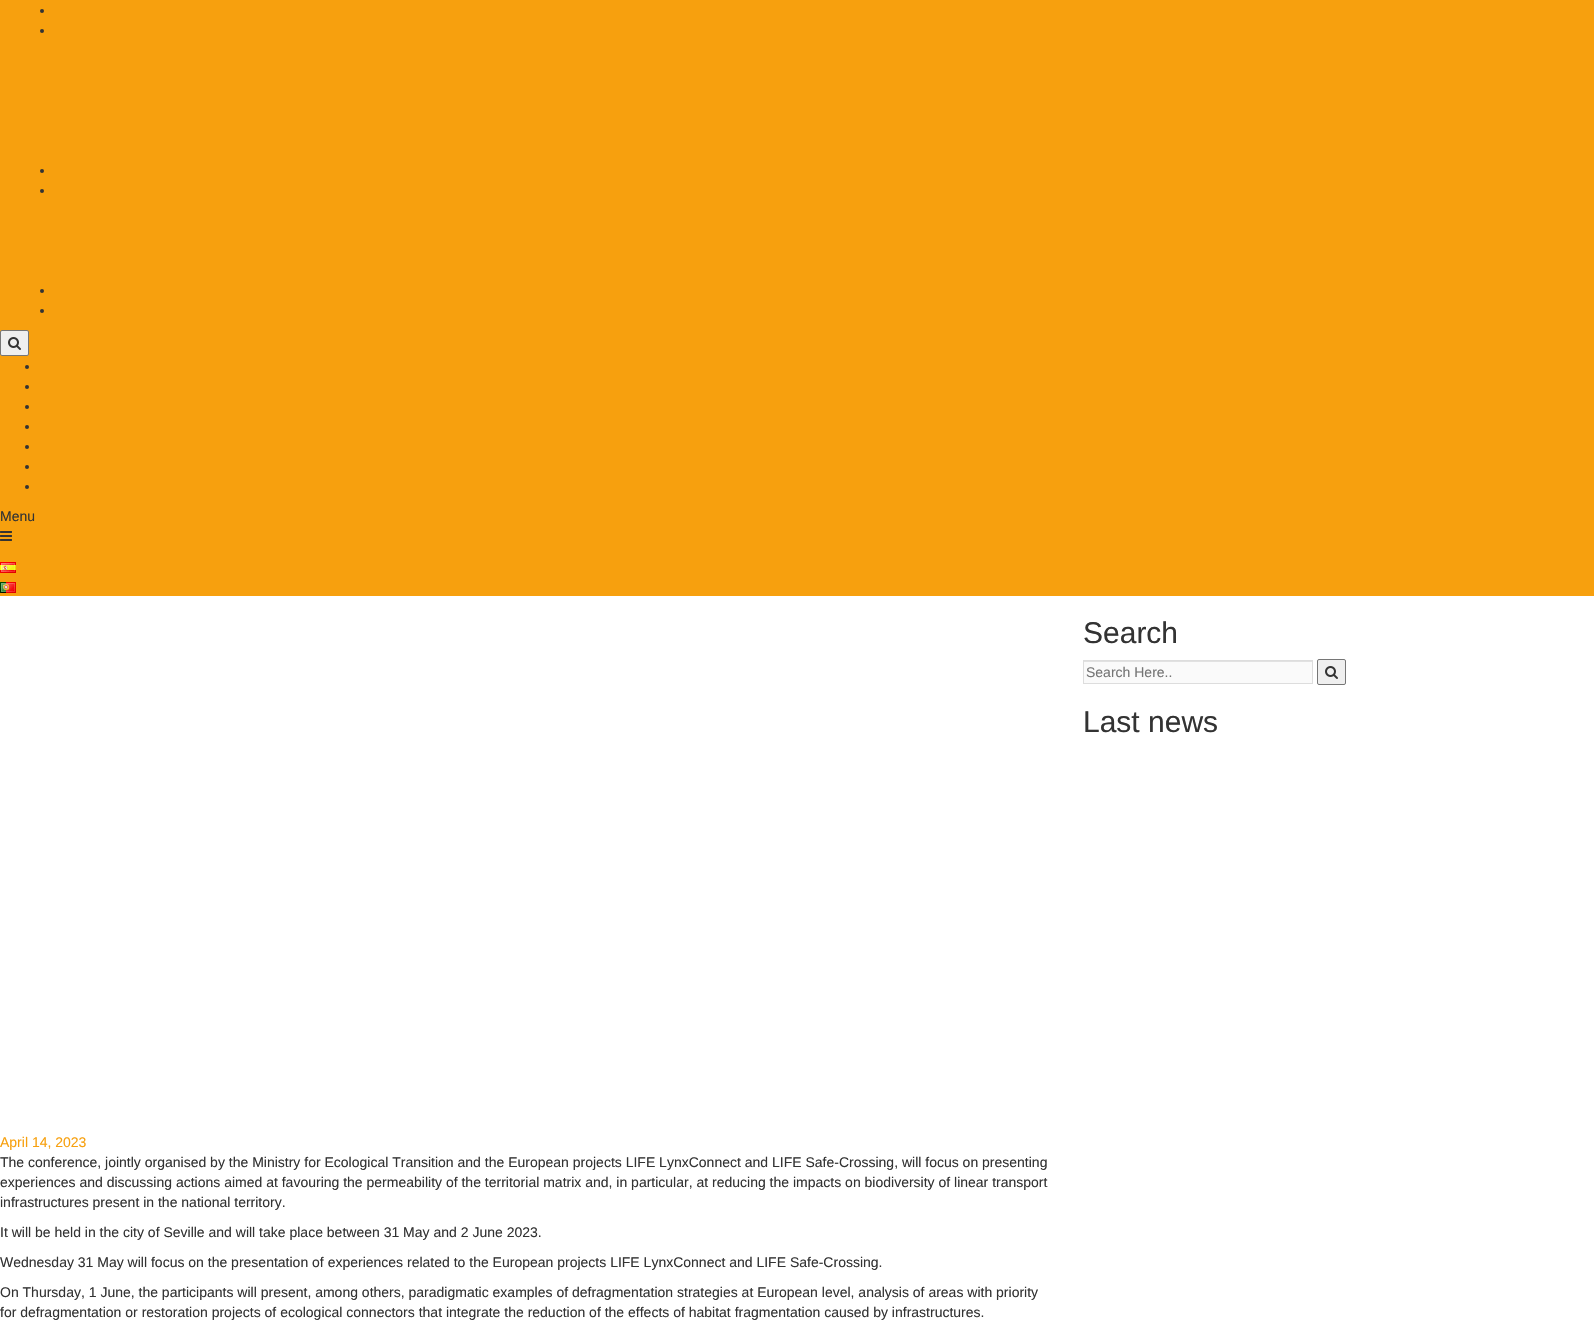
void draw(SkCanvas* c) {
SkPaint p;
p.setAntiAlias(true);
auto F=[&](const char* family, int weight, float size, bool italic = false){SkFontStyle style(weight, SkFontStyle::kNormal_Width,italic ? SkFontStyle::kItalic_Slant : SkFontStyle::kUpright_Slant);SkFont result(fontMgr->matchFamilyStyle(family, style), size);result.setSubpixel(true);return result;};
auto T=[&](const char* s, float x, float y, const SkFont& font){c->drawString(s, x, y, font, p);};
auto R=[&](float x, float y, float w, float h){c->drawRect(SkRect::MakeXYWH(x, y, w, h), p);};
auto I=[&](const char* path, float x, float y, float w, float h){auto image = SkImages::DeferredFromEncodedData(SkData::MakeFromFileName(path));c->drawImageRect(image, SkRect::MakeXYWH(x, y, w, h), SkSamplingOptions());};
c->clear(0xffffffff);
p.setColor(0xfff7a00e);
R(0,0,1594,596);
p.setColor(0xff333333);
c->drawCircle(42,11,2,p);
c->drawCircle(42,31,2,p);
c->drawCircle(42,171,2,p);
c->drawCircle(42,191,2,p);
c->drawCircle(42,291,2,p);
c->drawCircle(42,311,2,p);
p.setColor(0xffefefef);
c->drawRoundRect(SkRect::MakeXYWH(.5,330.5,28,25),1.5,1.5,p);
p.setStroke(true);
p.setStrokeWidth(1);
p.setColor(0xff767676);
c->drawRoundRect(SkRect::MakeXYWH(.5,330.5,28,25),1.5,1.5,p);
I("1.png",8,337,13,13);
p.setStroke(false);
p.setColor(0xff333333);
c->drawCircle(27,367,2,p);
c->drawCircle(27,387,2,p);
c->drawCircle(27,407,2,p);
c->drawCircle(27,427,2,p);
c->drawCircle(27,447,2,p);
c->drawCircle(27,467,2,p);
c->drawCircle(27,487,2,p);
auto f1 = F("Liberation Sans",400,14);
T("Menu",0,521,f1);
I("2.png",0,531,12,10);
I("3.png",0,562,16,11);
I("4.png",0,582,16,11);
auto f2 = F("Liberation Sans",400,30);
T("Search",1083,643,f2);
p.setColor(0xfffafafa);
R(1084,662,228,21);
p.setColor(0xffe1e1e1);
R(1084,661,228,1);
p.setStroke(true);
p.setColor(0xffdddddd);
c->drawRect(SkRect::MakeXYWH(1083.5,660.5,229,23),p);
p.setStroke(false);
p.setColor(0xff757575);
T("Search Here..",1086,677,f1);
p.setColor(0xffefefef);
c->drawRoundRect(SkRect::MakeXYWH(1317.5,659.5,28,25),1.5,1.5,p);
p.setStroke(true);
p.setColor(0xff767676);
c->drawRoundRect(SkRect::MakeXYWH(1317.5,659.5,28,25),1.5,1.5,p);
I("1.png",1325,666,13,13);
p.setStroke(false);
p.setColor(0xff333333);
T("Last news",1083,732,f2);
p.setColor(0xfff7a00e);
T("April 14, 2023",0,1147,f1);
p.setColor(0xff333333);
T("The conference, jointly organised by the Ministry for Ecological Transition and the European projects LIFE LynxConnect and LIFE Safe-Crossing, will focus on presenting",0,1167,f1);
T("experiences and discussing actions aimed at favouring the permeability of the territorial matrix and, in particular, at reducing the impacts on biodiversity of linear transport",0,1187,f1);
T("infrastructures present in the national territory.",0,1207,f1);
T("It will be held in the city of Seville and will take place between 31 May and 2 June 2023.",0,1237,f1);
T("Wednesday 31 May will focus on the presentation of experiences related to the European projects LIFE LynxConnect and LIFE Safe-Crossing.",0,1267,f1);
T("On Thursday, 1 June, the participants will present, among others, paradigmatic examples of defragmentation strategies at European level, analysis of areas with priority",0,1297,f1);
T("for defragmentation or restoration projects of ecological connectors that integrate the reduction of the effects of habitat fragmentation caused by infrastructures.",0,1317,f1);
}
